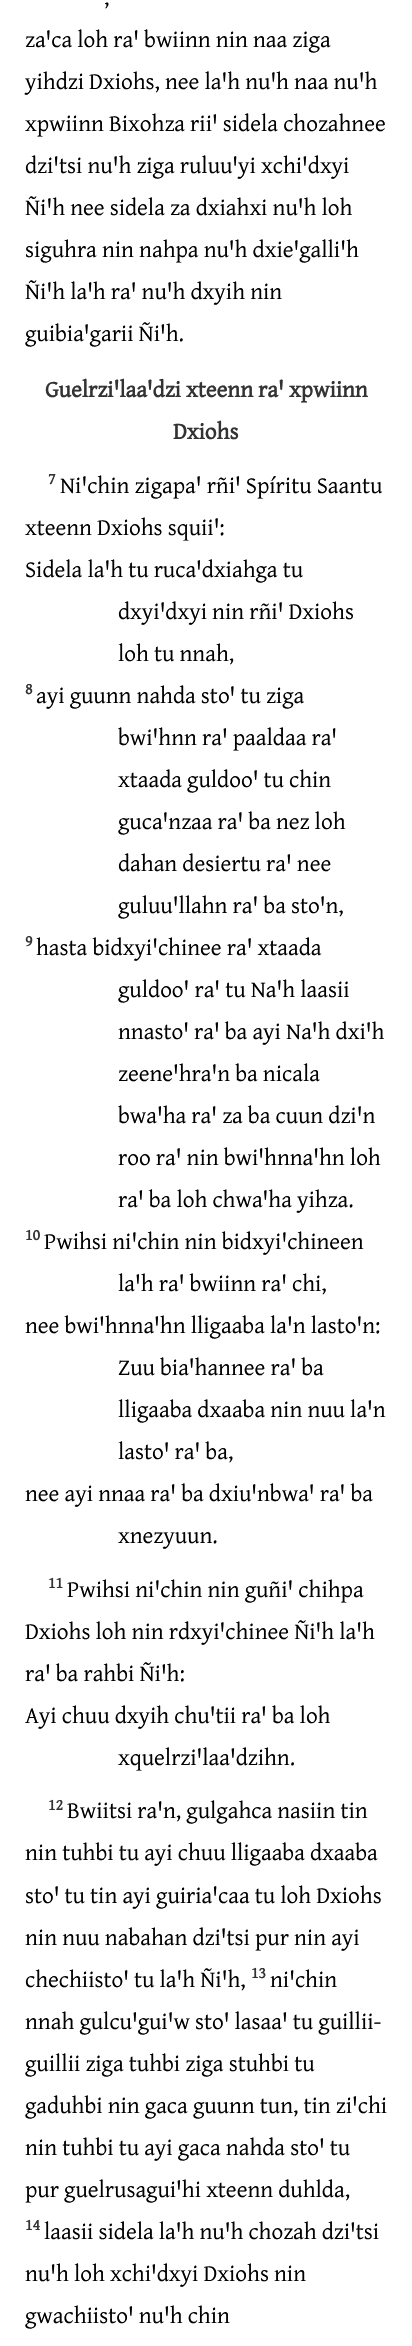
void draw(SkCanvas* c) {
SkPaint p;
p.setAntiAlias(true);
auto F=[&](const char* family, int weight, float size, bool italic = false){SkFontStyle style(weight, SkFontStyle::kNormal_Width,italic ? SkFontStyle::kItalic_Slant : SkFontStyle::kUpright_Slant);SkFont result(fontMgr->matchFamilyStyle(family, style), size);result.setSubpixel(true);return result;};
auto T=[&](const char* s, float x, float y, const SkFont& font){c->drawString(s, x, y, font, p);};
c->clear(0xffffffff);
auto f1 = F("Gentium Plus",400,23.3);
p.setColor(0xff000000);
T(",",104,5,f1);
T("zaꞌca loh raꞌ bwiinn nin naa ziga",25,47,f1);
T("yihdzi Dxiohs, nee laꞌh nuꞌh naa nuꞌh",25,89,f1);
T("xpwiinn Bixohza riiꞌ sidela chozahnee",25,131,f1);
T("dziꞌtsi nuꞌh ziga ruluuꞌyi xchiꞌdxyi",25,173,f1);
T("Ñiꞌh nee sidela za dxiahxi nuꞌh loh",25,215,f1);
T("siguhra nin nahpa nuꞌh dxieꞌgalliꞌh",25,257,f1);
T("Ñiꞌh laꞌh raꞌ nuꞌh dxyih nin",25,299,f1);
T("guibiaꞌgarii Ñiꞌh.",25,341,f1);
auto f2 = F("Gentium Plus",700,23.3);
p.setColor(0xff333333);
T("Guelrziꞌlaaꞌdzi xteenn raꞌ xpwiinn",45,397,f2);
T("Dxiohs",173,439,f2);
auto f3 = F("Gentium Plus",700,16);
T("7",48,484,f3);
p.setColor(0xff000000);
T("Niꞌchin zigapaꞌ rñiꞌ Spíritu Saantu",60,493,f1);
T("xteenn Dxiohs squiiꞌ:",25,535,f1);
T("Sidela laꞌh tu rucaꞌdxiahga tu",25,577,f1);
T("dxyiꞌdxyi nin rñiꞌ Dxiohs",118,619,f1);
T("loh tu nnah,",118,661,f1);
p.setColor(0xff333333);
T("8",25,694,f3);
p.setColor(0xff000000);
T("ayi guunn nahda stoꞌ tu ziga",36,703,f1);
T("bwiꞌhnn raꞌ paaldaa raꞌ",118,745,f1);
T("xtaada guldooꞌ tu chin",118,787,f1);
T("gucaꞌnzaa raꞌ ba nez loh",118,829,f1);
T("dahan desiertu raꞌ nee",118,871,f1);
T("guluuꞌllahn raꞌ ba stoꞌn,",118,913,f1);
p.setColor(0xff333333);
T("9",25,946,f3);
p.setColor(0xff000000);
T("hasta bidxyiꞌchinee raꞌ xtaada",36,955,f1);
T("guldooꞌ raꞌ tu Naꞌh laasii",118,997,f1);
T("nnastoꞌ raꞌ ba ayi Naꞌh dxiꞌh",118,1039,f1);
T("zeeneꞌhraꞌn ba nicala",118,1081,f1);
T("bwaꞌha raꞌ za ba cuun dziꞌn",118,1123,f1);
T("roo raꞌ nin bwiꞌhnnaꞌhn loh",118,1165,f1);
T("raꞌ ba loh chwaꞌha yihza.",118,1207,f1);
p.setColor(0xff333333);
T("10",25,1240,f3);
p.setColor(0xff000000);
T("Pwihsi niꞌchin nin bidxyiꞌchineen",44,1249,f1);
T("laꞌh raꞌ bwiinn raꞌ chi,",118,1291,f1);
T("nee bwiꞌhnnaꞌhn lligaaba laꞌn lastoꞌn:",25,1333,f1);
T("Zuu biaꞌhannee raꞌ ba",118,1375,f1);
T("lligaaba dxaaba nin nuu laꞌn",118,1417,f1);
T("lastoꞌ raꞌ ba,",118,1459,f1);
T("nee ayi nnaa raꞌ ba dxiuꞌnbwaꞌ raꞌ ba",25,1501,f1);
T("xnezyuun.",118,1543,f1);
p.setColor(0xff333333);
T("11",48,1588,f3);
p.setColor(0xff000000);
T("Pwihsi niꞌchin nin guñiꞌ chihpa",67,1597,f1);
T("Dxiohs loh nin rdxyiꞌchinee Ñiꞌh laꞌh",25,1639,f1);
T("raꞌ ba rahbi Ñiꞌh:",25,1681,f1);
T("Ayi chuu dxyih chuꞌtii raꞌ ba loh",25,1723,f1);
T("xquelrziꞌlaaꞌdzihn.",118,1765,f1);
p.setColor(0xff333333);
T("12",48,1810,f3);
p.setColor(0xff000000);
T("Bwiitsi raꞌn, gulgahca nasiin tin",67,1818,f1);
T("nin tuhbi tu ayi chuu lligaaba dxaaba",25,1860,f1);
T("stoꞌ tu tin ayi guiriaꞌcaa tu loh Dxiohs",25,1903,f1);
T("nin nuu nabahan dziꞌtsi pur nin ayi",25,1945,f1);
T("chechiistoꞌ tu laꞌh Ñiꞌh,",25,1987,f1);
p.setColor(0xff333333);
T("13",251,1978,f3);
p.setColor(0xff000000);
T("niꞌchin",270,1987,f1);
T("nnah gulcuꞌguiꞌw stoꞌ lasaaꞌ tu guillii-",25,2029,f1);
T("guillii ziga tuhbi ziga stuhbi tu",25,2071,f1);
T("gaduhbi nin gaca guunn tun, tin ziꞌchi",25,2113,f1);
T("nin tuhbi tu ayi gaca nahda stoꞌ tu",25,2155,f1);
T("pur guelrusaguiꞌhi xteenn duhlda,",25,2197,f1);
p.setColor(0xff333333);
T("14",25,2230,f3);
p.setColor(0xff000000);
T("laasii sidela laꞌh nuꞌh chozah dziꞌtsi",44,2239,f1);
T("nuꞌh loh xchiꞌdxyi Dxiohs nin",25,2281,f1);
T("gwachiistoꞌ nuꞌh chin",25,2323,f1);
}
